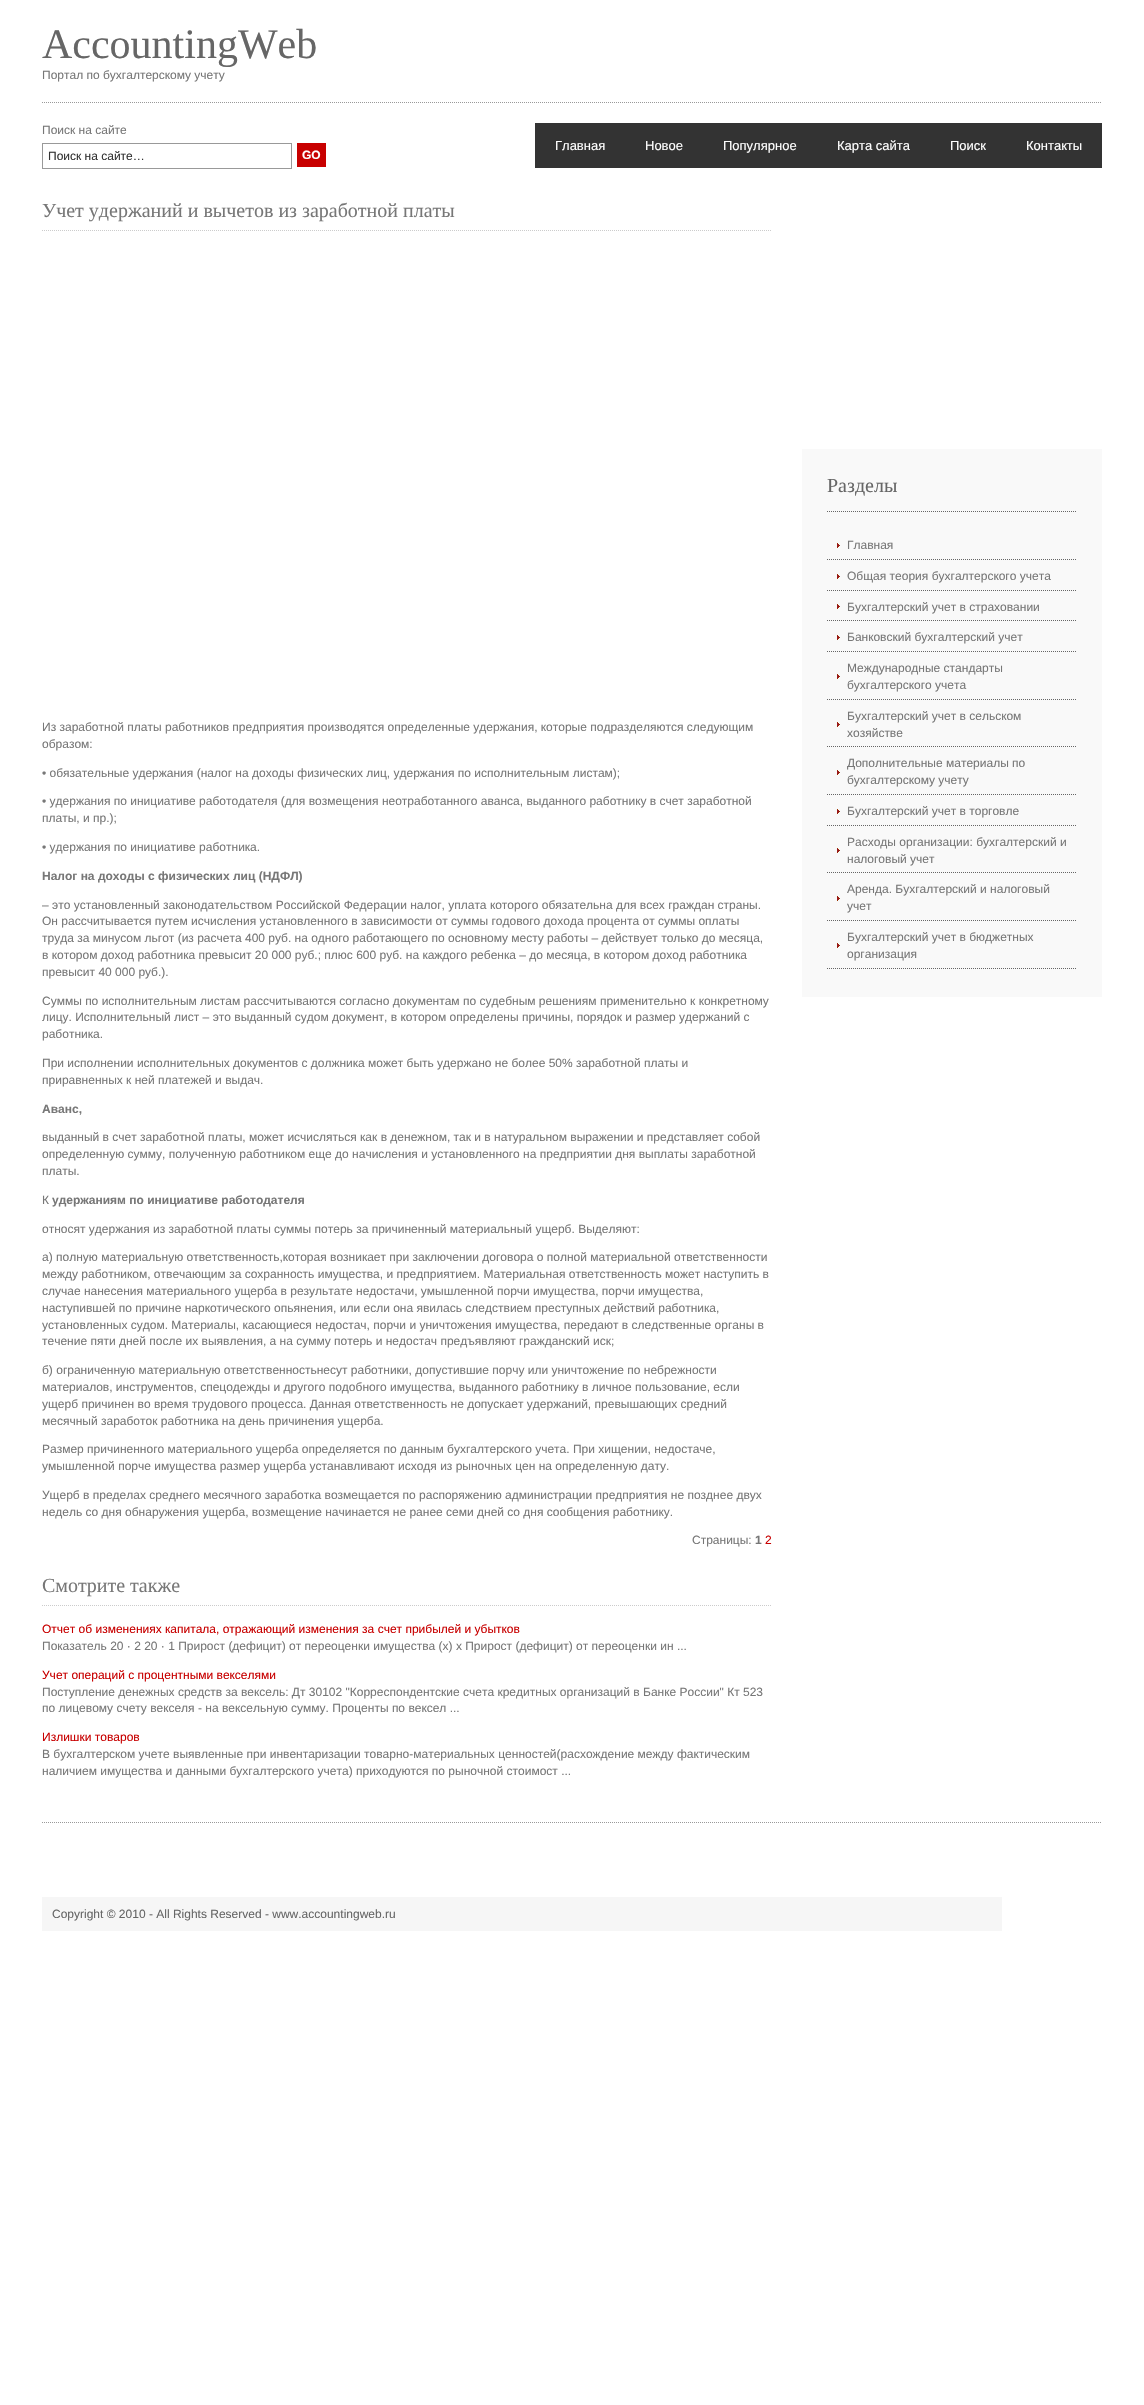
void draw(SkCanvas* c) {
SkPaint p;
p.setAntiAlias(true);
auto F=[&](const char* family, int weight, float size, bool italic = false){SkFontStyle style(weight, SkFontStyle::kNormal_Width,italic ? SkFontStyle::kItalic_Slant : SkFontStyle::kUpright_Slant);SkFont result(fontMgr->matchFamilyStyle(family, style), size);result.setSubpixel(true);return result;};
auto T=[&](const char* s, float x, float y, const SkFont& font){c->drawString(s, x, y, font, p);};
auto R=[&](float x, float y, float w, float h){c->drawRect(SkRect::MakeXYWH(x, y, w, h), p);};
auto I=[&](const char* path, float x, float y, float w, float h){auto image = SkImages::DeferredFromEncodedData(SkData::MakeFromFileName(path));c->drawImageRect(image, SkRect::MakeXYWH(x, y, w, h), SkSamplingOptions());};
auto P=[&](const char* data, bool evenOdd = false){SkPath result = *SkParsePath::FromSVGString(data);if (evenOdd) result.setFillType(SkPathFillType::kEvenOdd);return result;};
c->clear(0xffffffff);
p.setStroke(true);
p.setStrokeWidth(1);
p.setColor(0xff999999);
p.setPathEffect(SkDashPathEffect::Make({{1,1}}, 0));
c->drawPath(P("M42 102.5h1060"),p);
p.setPathEffect(nullptr);
auto f1 = F("Liberation Serif",400,42);
p.setStroke(false);
p.setColor(0xff666666);
T("AccountingWeb",42,58,f1);
auto f2 = F("Liberation Sans",400,12);
p.setColor(0xff777777);
T("Портал по бухгалтерскому учету",42,79,f2);
T("Поиск на сайте",42,134,f2);
p.setStroke(true);
p.setColor(0xff999999);
c->drawRect(SkRect::MakeXYWH(42.5,143.5,249,25),p);
p.setStroke(false);
p.setColor(0xff333333);
T("Поиск на сайте…",48,160,f2);
p.setColor(0xffc80000);
R(297,143,29,24);
auto f3 = F("Liberation Sans",700,12);
p.setColor(0xffffffff);
T("GO",302,159,f3);
p.setColor(0xff333333);
R(535,123,567,45);
auto f4 = F("Liberation Sans",400,13);
p.setColor(0xffffffff);
T("Главная",555,150,f4);
T("Новое",645,150,f4);
T("Популярное",723,150,f4);
T("Карта сайта",837,150,f4);
T("Поиск",950,150,f4);
T("Контакты",1026,150,f4);
p.setStroke(true);
p.setColor(0xffcccccc);
p.setPathEffect(SkDashPathEffect::Make({{1,1}}, 0));
c->drawPath(P("M42 230.5h730"),p);
p.setPathEffect(nullptr);
auto f5 = F("Liberation Serif",400,20);
p.setStroke(false);
p.setColor(0xff777777);
T("Учет удержаний и вычетов из заработной платы",42,217,f5);
T("Из заработной платы работников предприятия производятся определенные удержания, которые подразделяются следующим",42,731,f2);
T("образом:",42,748,f2);
T("• обязательные удержания (налог на доходы физических лиц, удержания по исполнительным листам);",42,777,f2);
T("• удержания по инициативе работодателя (для возмещения неотработанного аванса, выданного работнику в счет заработной",42,805,f2);
T("платы, и пр.);",42,822,f2);
T("• удержания по инициативе работника.",42,851,f2);
T("Налог на доходы с физических лиц (НДФЛ)",42,880,f3);
T("– это установленный законодательством Российской Федерации налог, уплата которого обязательна для всех граждан страны.",42,909,f2);
T("Он рассчитывается путем исчисления установленного в зависимости от суммы годового дохода процента от суммы оплаты",42,925,f2);
T("труда за минусом льгот (из расчета 400 руб. на одного работающего по основному месту работы – действует только до месяца,",42,942,f2);
T("в котором доход работника превысит 20 000 руб.; плюс 600 руб. на каждого ребенка – до месяца, в котором доход работника",42,959,f2);
T("превысит 40 000 руб.).",42,976,f2);
T("Суммы по исполнительным листам рассчитываются согласно документам по судебным решениям применительно к конкретному",42,1005,f2);
T("лицу. Исполнительный лист – это выданный судом документ, в котором определены причины, порядок и размер удержаний с",42,1021,f2);
T("работника.",42,1038,f2);
T("При исполнении исполнительных документов с должника может быть удержано не более 50% заработной платы и",42,1067,f2);
T("приравненных к ней платежей и выдач.",42,1084,f2);
T("Аванс,",42,1113,f3);
T("выданный в счет заработной платы, может исчисляться как в денежном, так и в натуральном выражении и представляет собой",42,1141,f2);
T("определенную сумму, полученную работником еще до начисления и установленного на предприятии дня выплаты заработной",42,1158,f2);
T("платы.",42,1175,f2);
T("К",42,1204,f2);
T("удержаниям по инициативе работодателя",52,1204,f3);
T("относят удержания из заработной платы суммы потерь за причиненный материальный ущерб. Выделяют:",42,1233,f2);
T("а) полную материальную ответственность,которая возникает при заключении договора о полной материальной ответственности",42,1261,f2);
T("между работником, отвечающим за сохранность имущества, и предприятием. Материальная ответственность может наступить в",42,1278,f2);
T("случае нанесения материального ущерба в результате недостачи, умышленной порчи имущества, порчи имущества,",42,1295,f2);
T("наступившей по причине наркотического опьянения, или если она явилась следствием преступных действий работника,",42,1312,f2);
T("установленных судом. Материалы, касающиеся недостач, порчи и уничтожения имущества, передают в следственные органы в",42,1329,f2);
T("течение пяти дней после их выявления, а на сумму потерь и недостач предъявляют гражданский иск;",42,1345,f2);
T("б) ограниченную материальную ответственностьнесут работники, допустившие порчу или уничтожение по небрежности",42,1374,f2);
T("материалов, инструментов, спецодежды и другого подобного имущества, выданного работнику в личное пользование, если",42,1391,f2);
T("ущерб причинен во время трудового процесса. Данная ответственность не допускает удержаний, превышающих средний",42,1408,f2);
T("месячный заработок работника на день причинения ущерба.",42,1425,f2);
T("Размер причиненного материального ущерба определяется по данным бухгалтерского учета. При хищении, недостаче,",42,1453,f2);
T("умышленной порче имущества размер ущерба устанавливают исходя из рыночных цен на определенную дату.",42,1470,f2);
T("Ущерб в пределах среднего месячного заработка возмещается по распоряжению администрации предприятия не позднее двух",42,1499,f2);
T("недель со дня обнаружения ущерба, возмещение начинается не ранее семи дней со дня сообщения работнику.",42,1516,f2);
T("Страницы:",692,1544,f2);
T("1",755,1544,f3);
p.setColor(0xffc80000);
T("2",765,1544,f2);
p.setStroke(true);
p.setColor(0xffcccccc);
p.setPathEffect(SkDashPathEffect::Make({{1,1}}, 0));
c->drawPath(P("M42 1605.5h730"),p);
p.setPathEffect(nullptr);
p.setStroke(false);
p.setColor(0xff777777);
T("Смотрите также",42,1592,f5);
p.setColor(0xffc80000);
T("Отчет об изменениях капитала, отражающий изменения за счет прибылей и убытков",42,1633,f2);
p.setColor(0xff777777);
T("Показатель 20 · 2 20 · 1 Прирост (дефицит) от переоценки имущества (x) x Прирост (дефицит) от переоценки ин ...",42,1650,f2);
p.setColor(0xffc80000);
T("Учет операций с процентными векселями",42,1679,f2);
p.setColor(0xff777777);
T("Поступление денежных средств за вексель: Дт 30102 \"Корреспондентские счета кредитных организаций в Банке России\" Кт 523",42,1696,f2);
T("по лицевому счету векселя - на вексельную сумму. Проценты по вексел ...",42,1712,f2);
p.setColor(0xffc80000);
T("Излишки товаров",42,1741,f2);
p.setColor(0xff777777);
T("В бухгалтерском учете выявленные при инвентаризации товарно-материальных ценностей(расхождение между фактическим",42,1758,f2);
T("наличием имущества и данными бухгалтерского учета) приходуются по рыночной стоимост ...",42,1775,f2);
p.setColor(0xfff9f9f9);
R(802,449,300,548);
p.setStroke(true);
p.setColor(0xff666666);
p.setPathEffect(SkDashPathEffect::Make({{1,1}}, 0));
c->drawPath(P("M827 511.5h250"),p);
p.setPathEffect(nullptr);
p.setStroke(false);
T("Разделы",827,492,f5);
I("1.png",837,543,3,5);
p.setStroke(true);
p.setPathEffect(SkDashPathEffect::Make({{1,1}}, 0));
c->drawPath(P("M827 559.5h250"),p);
p.setPathEffect(nullptr);
p.setStroke(false);
p.setColor(0xff777777);
T("Главная",847,549,f2);
I("1.png",837,574,3,5);
p.setStroke(true);
p.setColor(0xff666666);
p.setPathEffect(SkDashPathEffect::Make({{1,1}}, 0));
c->drawPath(P("M827 590.5h250"),p);
p.setPathEffect(nullptr);
p.setStroke(false);
p.setColor(0xff777777);
T("Общая теория бухгалтерского учета",847,580,f2);
I("1.png",837,604,3,5);
p.setStroke(true);
p.setColor(0xff666666);
p.setPathEffect(SkDashPathEffect::Make({{1,1}}, 0));
c->drawPath(P("M827 620.5h250"),p);
p.setPathEffect(nullptr);
p.setStroke(false);
p.setColor(0xff777777);
T("Бухгалтерский учет в страховании",847,611,f2);
I("1.png",837,635,3,5);
p.setStroke(true);
p.setColor(0xff666666);
p.setPathEffect(SkDashPathEffect::Make({{1,1}}, 0));
c->drawPath(P("M827 651.5h250"),p);
p.setPathEffect(nullptr);
p.setStroke(false);
p.setColor(0xff777777);
T("Банковский бухгалтерский учет",847,641,f2);
I("1.png",837,674,3,5);
p.setStroke(true);
p.setColor(0xff666666);
p.setPathEffect(SkDashPathEffect::Make({{1,1}}, 0));
c->drawPath(P("M827 699.5h250"),p);
p.setPathEffect(nullptr);
p.setStroke(false);
p.setColor(0xff777777);
T("Международные стандарты",847,672,f2);
T("бухгалтерского учета",847,689,f2);
I("1.png",837,722,3,5);
p.setStroke(true);
p.setColor(0xff666666);
p.setPathEffect(SkDashPathEffect::Make({{1,1}}, 0));
c->drawPath(P("M827 746.5h250"),p);
p.setPathEffect(nullptr);
p.setStroke(false);
p.setColor(0xff777777);
T("Бухгалтерский учет в сельском",847,720,f2);
T("хозяйстве",847,737,f2);
I("1.png",837,770,3,5);
p.setStroke(true);
p.setColor(0xff666666);
p.setPathEffect(SkDashPathEffect::Make({{1,1}}, 0));
c->drawPath(P("M827 794.5h250"),p);
p.setPathEffect(nullptr);
p.setStroke(false);
p.setColor(0xff777777);
T("Дополнительные материалы по",847,767,f2);
T("бухгалтерскому учету",847,784,f2);
I("1.png",837,809,3,5);
p.setStroke(true);
p.setColor(0xff666666);
p.setPathEffect(SkDashPathEffect::Make({{1,1}}, 0));
c->drawPath(P("M827 825.5h250"),p);
p.setPathEffect(nullptr);
p.setStroke(false);
p.setColor(0xff777777);
T("Бухгалтерский учет в торговле",847,815,f2);
I("1.png",837,848,3,5);
p.setStroke(true);
p.setColor(0xff666666);
p.setPathEffect(SkDashPathEffect::Make({{1,1}}, 0));
c->drawPath(P("M827 872.5h250"),p);
p.setPathEffect(nullptr);
p.setStroke(false);
p.setColor(0xff777777);
T("Расходы организации: бухгалтерский и",847,846,f2);
T("налоговый учет",847,863,f2);
I("1.png",837,896,3,5);
p.setStroke(true);
p.setColor(0xff666666);
p.setPathEffect(SkDashPathEffect::Make({{1,1}}, 0));
c->drawPath(P("M827 920.5h250"),p);
p.setPathEffect(nullptr);
p.setStroke(false);
p.setColor(0xff777777);
T("Аренда. Бухгалтерский и налоговый",847,893,f2);
T("учет",847,910,f2);
I("1.png",837,943,3,5);
p.setStroke(true);
p.setColor(0xff666666);
p.setPathEffect(SkDashPathEffect::Make({{1,1}}, 0));
c->drawPath(P("M827 968.5h250"),p);
p.setPathEffect(nullptr);
p.setStroke(false);
p.setColor(0xff777777);
T("Бухгалтерский учет в бюджетных",847,941,f2);
T("организация",847,958,f2);
p.setStroke(true);
p.setColor(0xff999999);
p.setPathEffect(SkDashPathEffect::Make({{1,1}}, 0));
c->drawPath(P("M42 1822.5h1060"),p);
p.setPathEffect(nullptr);
p.setStroke(false);
p.setColor(0xfff6f6f6);
R(42,1897,960,34);
p.setColor(0xff666666);
T("Copyright © 2010 - All Rights Reserved - www.accountingweb.ru",52,1918,f2);
}
